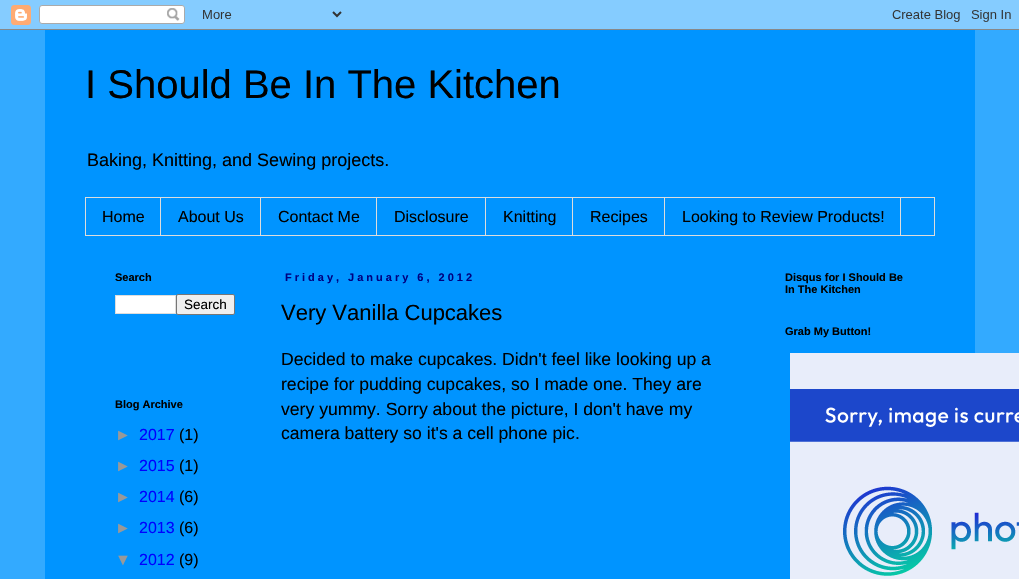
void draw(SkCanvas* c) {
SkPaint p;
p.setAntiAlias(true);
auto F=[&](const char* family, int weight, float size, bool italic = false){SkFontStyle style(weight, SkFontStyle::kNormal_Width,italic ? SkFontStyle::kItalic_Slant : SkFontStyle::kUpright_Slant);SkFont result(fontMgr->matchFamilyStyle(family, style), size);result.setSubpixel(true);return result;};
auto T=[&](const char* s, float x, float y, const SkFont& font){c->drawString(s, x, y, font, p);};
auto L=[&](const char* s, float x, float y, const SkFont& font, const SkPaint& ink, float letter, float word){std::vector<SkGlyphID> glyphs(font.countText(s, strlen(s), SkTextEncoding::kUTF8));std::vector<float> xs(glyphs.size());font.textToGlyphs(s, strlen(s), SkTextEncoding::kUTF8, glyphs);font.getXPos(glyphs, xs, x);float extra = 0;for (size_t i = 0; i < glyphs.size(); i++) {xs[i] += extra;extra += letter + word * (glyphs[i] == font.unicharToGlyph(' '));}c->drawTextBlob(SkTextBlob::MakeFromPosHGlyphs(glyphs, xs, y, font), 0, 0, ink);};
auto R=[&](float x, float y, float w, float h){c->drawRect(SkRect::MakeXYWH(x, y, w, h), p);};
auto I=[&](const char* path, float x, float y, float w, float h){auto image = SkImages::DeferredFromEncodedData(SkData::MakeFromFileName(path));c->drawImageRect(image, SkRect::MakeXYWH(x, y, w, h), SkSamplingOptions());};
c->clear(0xff33aaff);
I("1.png",0,0,1019,30);
p.setColor(0xff0094ff);
R(45,30,930,549);
auto f1 = F("Liberation Sans",400,40);
p.setColor(0xff000000);
T("I Should Be In The Kitchen",85,98,f1);
auto f2 = F("Liberation Sans",400,18);
T("Baking, Knitting, and Sewing projects.",87,166,f2);
p.setStroke(true);
p.setStrokeWidth(1);
p.setColor(0xffdddddd);
c->drawRect(SkRect::MakeXYWH(85.5,197.5,849,38),p);
p.setStroke(false);
R(160,198,1,37);
auto f3 = F("Liberation Sans",400,16);
p.setColor(0xff000000);
T("Home",102,222,f3);
p.setColor(0xffdddddd);
R(260,198,1,37);
p.setColor(0xff000000);
T("About Us",178,222,f3);
p.setColor(0xffdddddd);
R(376,198,1,37);
p.setColor(0xff000000);
T("Contact Me",278,222,f3);
p.setColor(0xffdddddd);
R(485,198,1,37);
p.setColor(0xff000000);
T("Disclosure",394,222,f3);
p.setColor(0xffdddddd);
R(572,198,1,37);
p.setColor(0xff000000);
T("Knitting",503,222,f3);
p.setColor(0xffdddddd);
R(664,198,1,37);
p.setColor(0xff000000);
T("Recipes",590,222,f3);
p.setColor(0xffdddddd);
R(900,198,1,37);
p.setColor(0xff000000);
T("Looking to Review Products!",682,222,f3);
auto f4 = F("Liberation Sans",700,11);
T("Search",115,281,f4);
p.setColor(0xffffffff);
c->drawRect(SkRect::MakeXYWH(115.5,295.5,60,18),p);
p.setStroke(true);
p.setColor(0xffdddddd);
c->drawRect(SkRect::MakeXYWH(115.5,295.5,60,18),p);
p.setStroke(false);
p.setColor(0xffefefef);
c->drawRoundRect(SkRect::MakeXYWH(176.5,294.5,58,20),1.5,1.5,p);
p.setStroke(true);
p.setColor(0xff767676);
c->drawRoundRect(SkRect::MakeXYWH(176.5,294.5,58,20),1.5,1.5,p);
auto f5 = F("Liberation Sans",400,13.5);
p.setStroke(false);
p.setColor(0xff000000);
T("Search",184,309,f5);
T("Blog Archive",115,408,f4);
p.setColor(0xff999999);
T("►",115,440,f3);
p.setColor(0xff0000ff);
T("2017",139,440,f3);
p.setColor(0xff000000);
T("(1)",179,440,f3);
p.setColor(0xff999999);
T("►",115,471,f3);
p.setColor(0xff0000ff);
T("2015",139,471,f3);
p.setColor(0xff000000);
T("(1)",179,471,f3);
p.setColor(0xff999999);
T("►",115,502,f3);
p.setColor(0xff0000ff);
T("2014",139,502,f3);
p.setColor(0xff000000);
T("(6)",179,502,f3);
p.setColor(0xff999999);
T("►",115,533,f3);
p.setColor(0xff0000ff);
T("2013",139,533,f3);
p.setColor(0xff000000);
T("(6)",179,533,f3);
p.setColor(0xff999999);
T("▼",115,565,f3);
p.setColor(0xff0000ff);
T("2012",139,565,f3);
p.setColor(0xff000000);
T("(9)",179,565,f3);
p.setColor(0xff00007f);
L("Friday, January 6, 2012",285,281,f4,p,3,0);
auto f6 = F("Liberation Sans",400,22);
p.setColor(0xff000000);
T("Very Vanilla Cupcakes",281,320,f6);
auto f7 = F("Liberation Sans",400,17.6);
T("Decided to make cupcakes. Didn't feel like looking up a",281,365,f7);
T("recipe for pudding cupcakes, so I made one. They are",281,390,f7);
T("very yummy. Sorry about the picture, I don't have my",281,415,f7);
T("camera battery so it's a cell phone pic.",281,439,f7);
T("Disqus for I Should Be",785,281,f4);
T("In The Kitchen",785,293,f4);
T("Grab My Button!",785,335,f4);
I("2.png",790,353,229,226);
}
